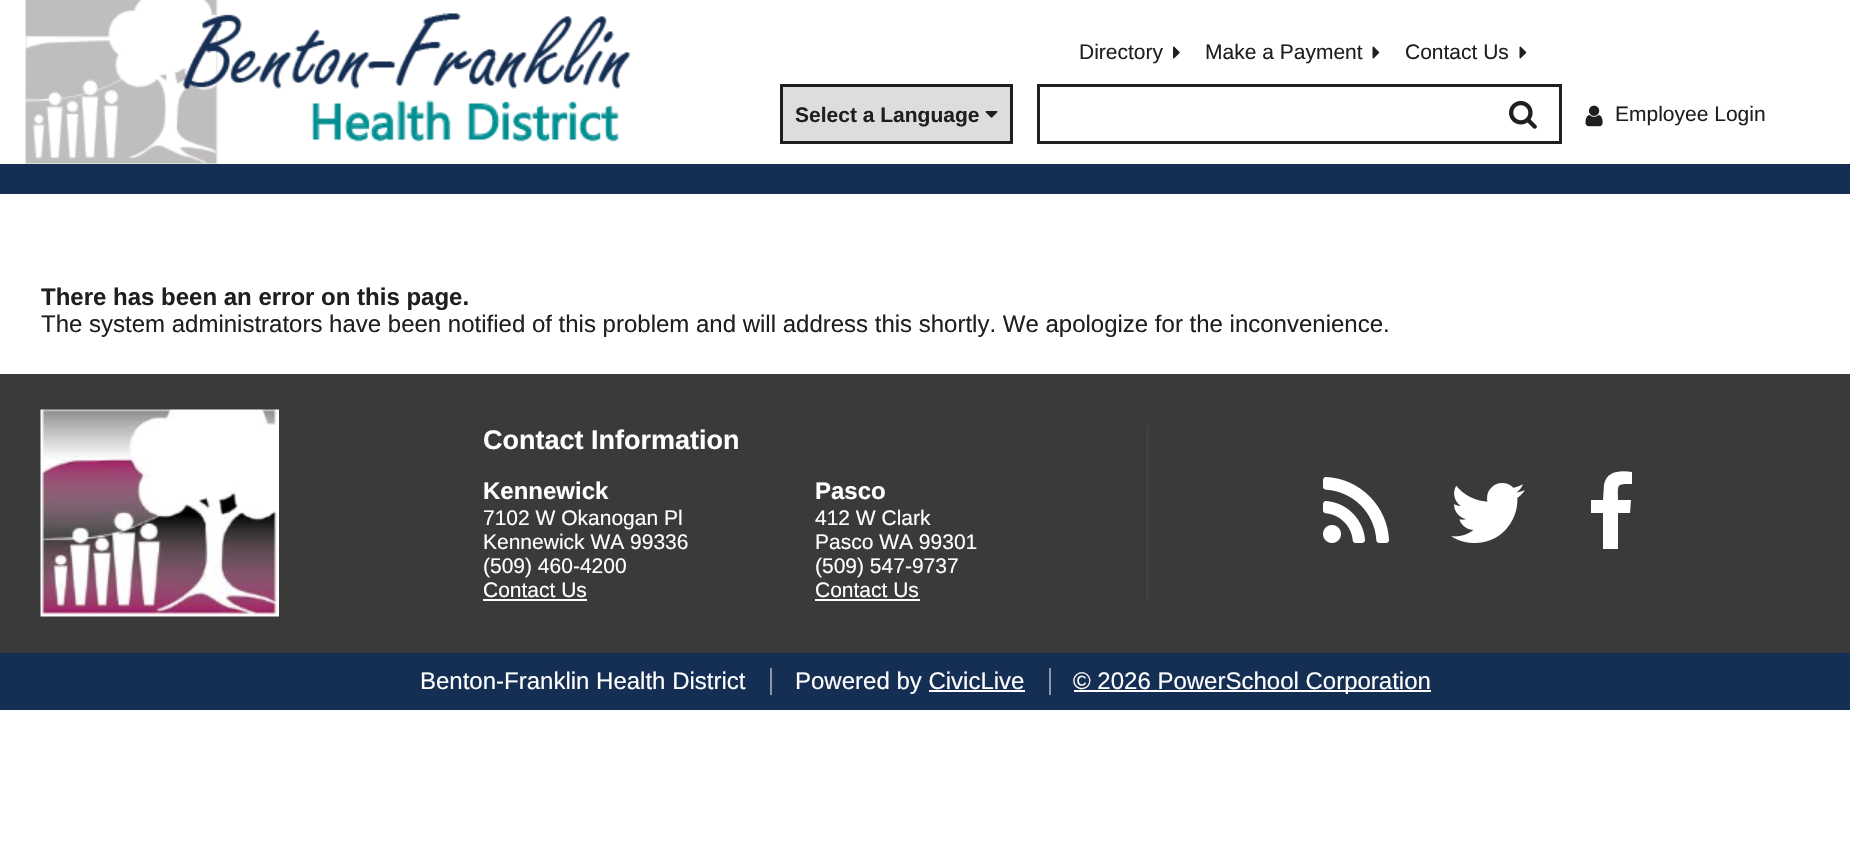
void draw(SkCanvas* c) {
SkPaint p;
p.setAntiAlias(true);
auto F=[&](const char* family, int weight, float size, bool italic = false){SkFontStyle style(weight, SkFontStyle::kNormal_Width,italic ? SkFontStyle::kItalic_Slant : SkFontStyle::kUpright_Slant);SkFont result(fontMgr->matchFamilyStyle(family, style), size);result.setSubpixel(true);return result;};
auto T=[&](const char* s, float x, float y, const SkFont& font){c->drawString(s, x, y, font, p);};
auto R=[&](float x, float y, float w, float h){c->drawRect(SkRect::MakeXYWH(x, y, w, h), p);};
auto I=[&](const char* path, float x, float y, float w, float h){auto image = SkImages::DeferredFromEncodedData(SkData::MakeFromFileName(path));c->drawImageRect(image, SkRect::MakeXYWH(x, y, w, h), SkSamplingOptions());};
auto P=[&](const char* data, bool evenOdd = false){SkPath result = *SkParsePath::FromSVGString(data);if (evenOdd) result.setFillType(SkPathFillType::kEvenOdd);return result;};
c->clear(0xffffffff);
I("1.png",25,0,606,164);
auto f1 = F("Liberation Sans",400,21);
p.setColor(0xff1f1f1f);
T("Directory",1079,59,f1);
I("2.png",1173,46,7,13);
T("Make a Payment",1205,59,f1);
I("3.png",1372,46,8,13);
T("Contact Us",1405,59,f1);
I("3.png",1519,46,8,13);
p.setColor(0xffdddddd);
c->drawRect(SkRect::MakeXYWH(781.5,85.5,230,57),p);
p.setStroke(true);
p.setStrokeWidth(3);
p.setColor(0xff1f1f1f);
c->drawRect(SkRect::MakeXYWH(781.5,85.5,230,57),p);
auto f2 = F("Liberation Sans",700,21);
p.setStroke(false);
T("Select a Language",795,122,f2);
I("4.png",985,111,13,7);
p.setStroke(true);
c->drawRect(SkRect::MakeXYWH(1038.5,85.5,522,57),p);
I("5.png",1509,100,28,29);
I("6.png",1585,105,18,22);
p.setStroke(false);
T("Employee Login",1615,121,f1);
p.setColor(0xff152e53);
R(0,164,1850,30);
auto f3 = F("Liberation Sans",700,24);
p.setColor(0xff1f1f1f);
T("There has been an error on this page.",41,305,f3);
auto f4 = F("Liberation Sans",400,24);
T("The system administrators have been notified of this problem and will address this shortly. We apologize for the inconvenience.",41,332,f4);
p.setColor(0xff3a3a3a);
R(0,374,1850,279);
I("7.png",40,409,239,208);
auto f5 = F("Liberation Sans",700,27);
p.setColor(0xffffffff);
T("Contact Information",483,449,f5);
p.setColor(0xff404040);
R(1146,425,3,177);
p.setColor(0xffffffff);
T("Kennewick",483,499,f3);
T("7102 W Okanogan Pl",483,525,f1);
T("Kennewick WA 99336",483,549,f1);
T("(509) 460-4200",483,573,f1);
T("Contact Us",483,597,f1);
R(483,599,104,2);
T("Pasco",815,499,f3);
T("412 W Clark",815,525,f1);
T("Pasco WA 99301",815,549,f1);
T("(509) 547-9737",815,573,f1);
T("Contact Us",815,597,f1);
R(815,599,105,2);
I("8.png",1323,477,66,66);
I("9.png",1451,483,74,60);
c->drawPath(P("M1632 472v12c-16 0-14 0-14 16h13l-1 13h-12v36h-15v-36h-12v-13h12l1-15c2-14 16-15 28-13z"),p);
p.setColor(0xff152e53);
R(0,653,1850,57);
p.setColor(0xff8a97a9);
R(770,668,2,27);
p.setColor(0xffffffff);
T("Benton-Franklin Health District",420,689,f4);
p.setColor(0xff8a97a9);
R(1049,668,2,27);
p.setColor(0xffffffff);
T("Powered by CivicLive",795,689,f4);
R(929,690,96,2);
R(1074,690,357,2);
T("© 2026 PowerSchool Corporation",1073,689,f4);
}
